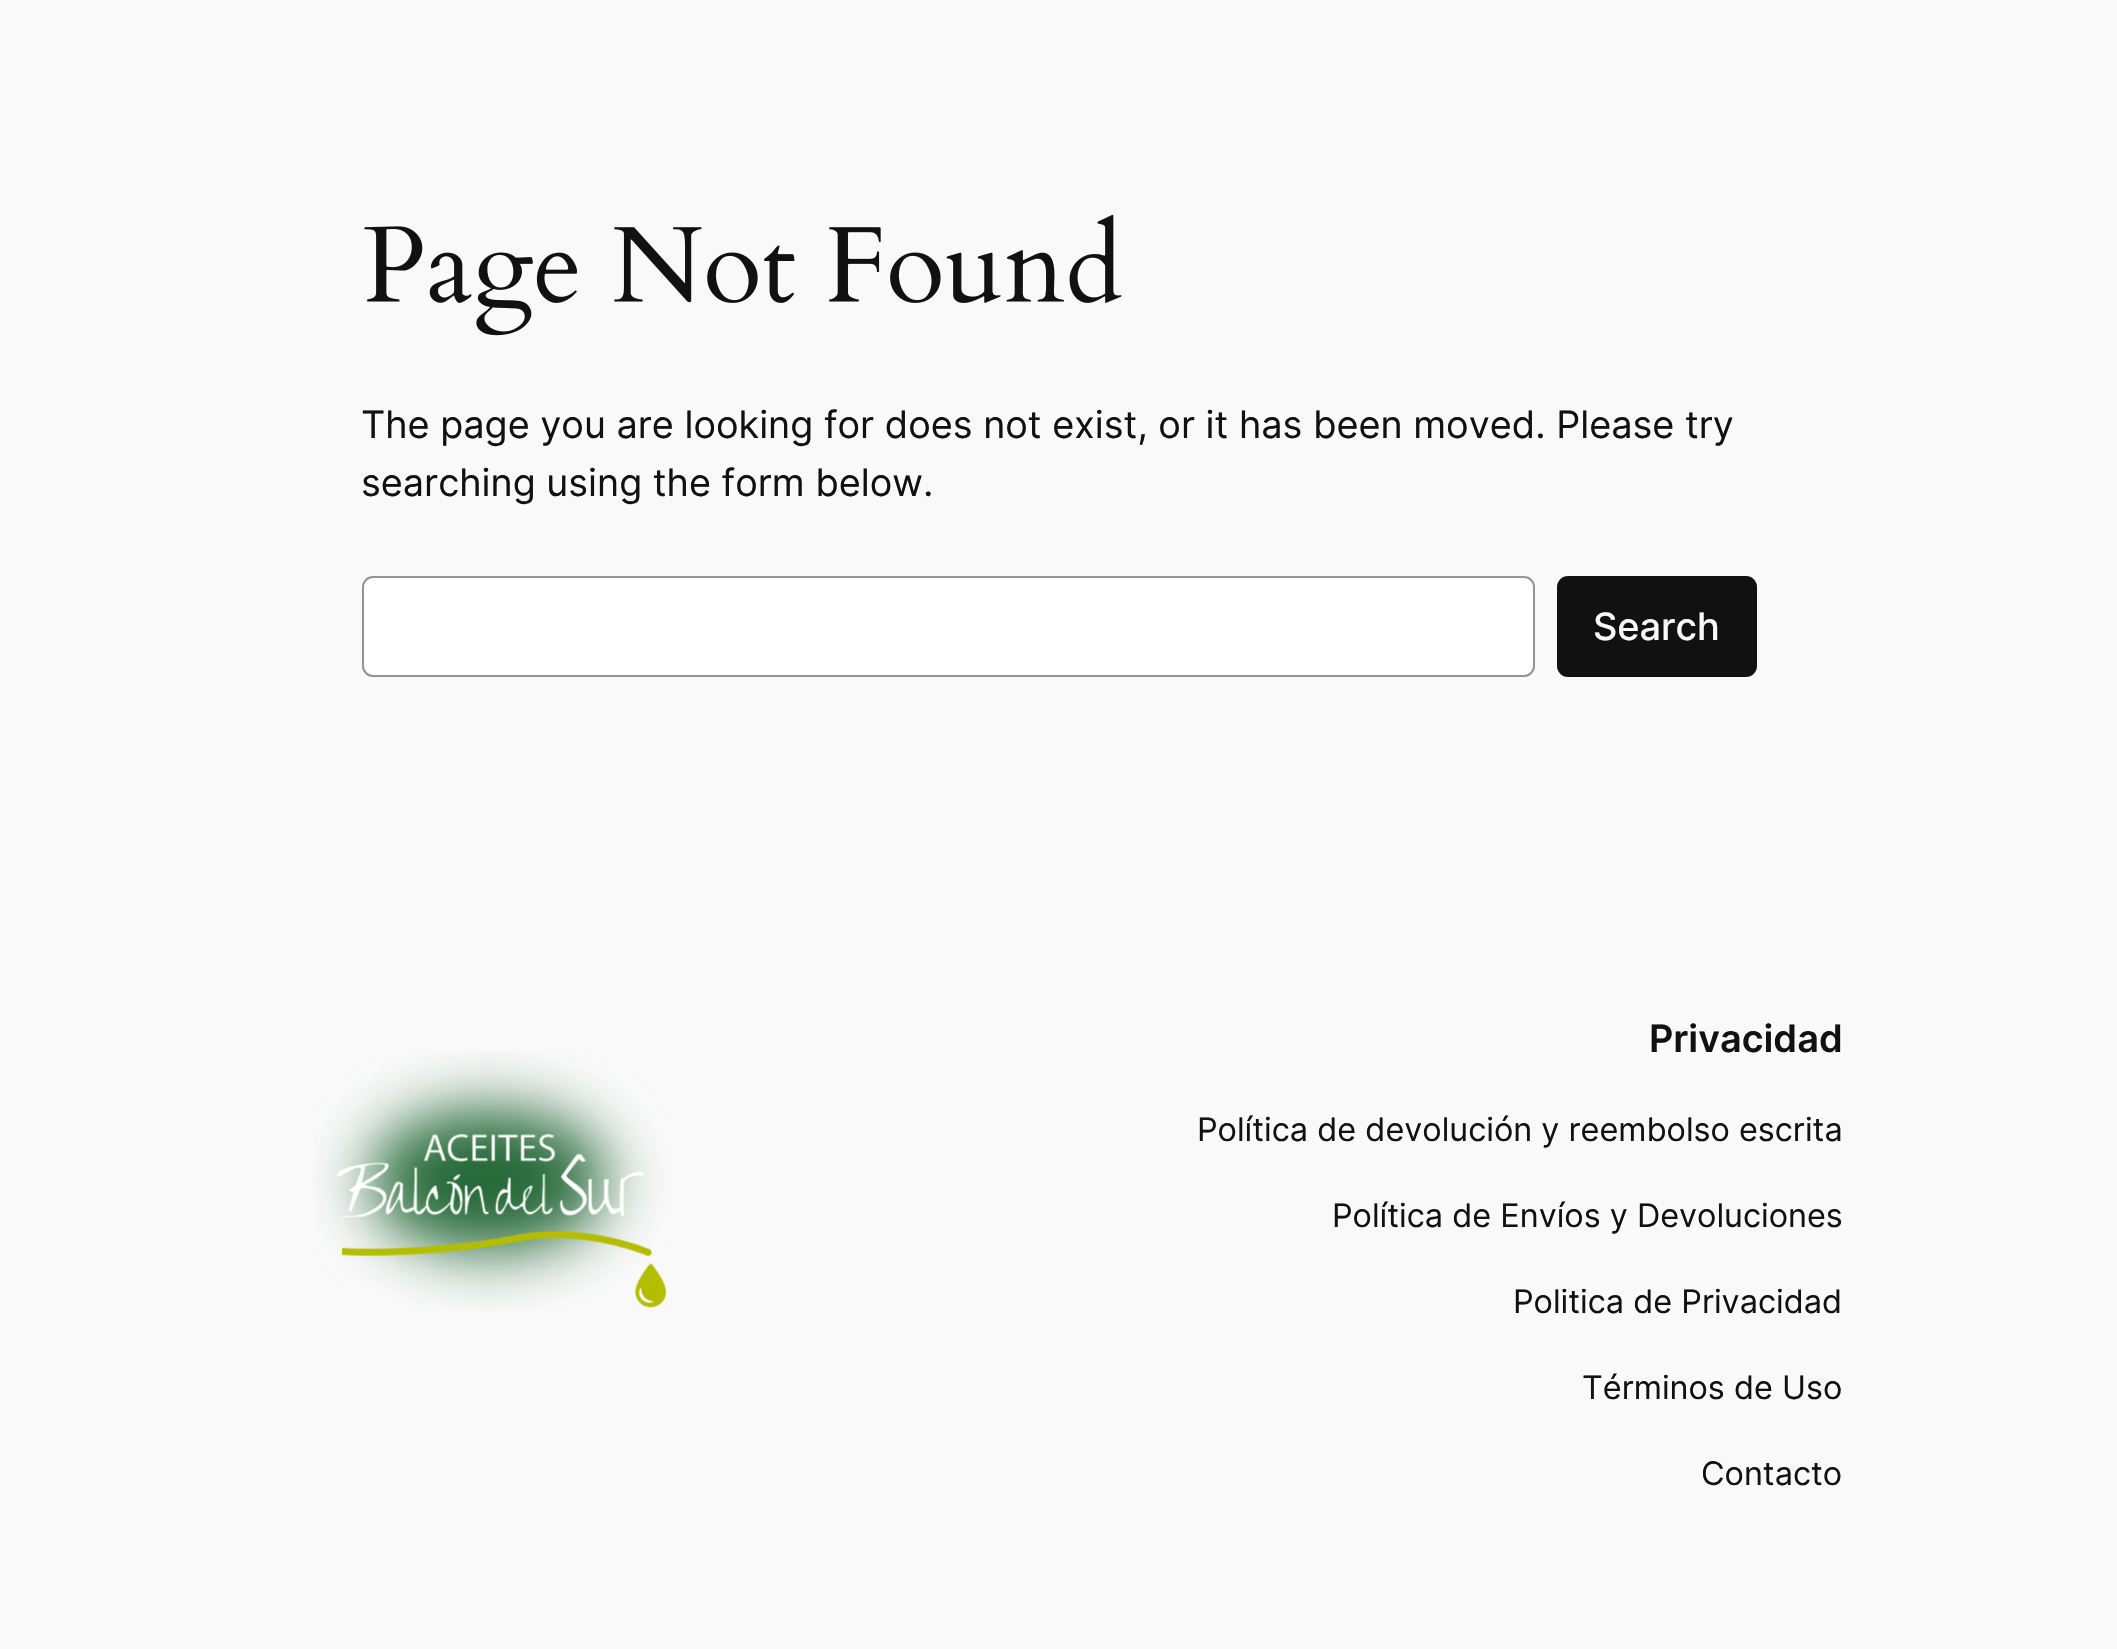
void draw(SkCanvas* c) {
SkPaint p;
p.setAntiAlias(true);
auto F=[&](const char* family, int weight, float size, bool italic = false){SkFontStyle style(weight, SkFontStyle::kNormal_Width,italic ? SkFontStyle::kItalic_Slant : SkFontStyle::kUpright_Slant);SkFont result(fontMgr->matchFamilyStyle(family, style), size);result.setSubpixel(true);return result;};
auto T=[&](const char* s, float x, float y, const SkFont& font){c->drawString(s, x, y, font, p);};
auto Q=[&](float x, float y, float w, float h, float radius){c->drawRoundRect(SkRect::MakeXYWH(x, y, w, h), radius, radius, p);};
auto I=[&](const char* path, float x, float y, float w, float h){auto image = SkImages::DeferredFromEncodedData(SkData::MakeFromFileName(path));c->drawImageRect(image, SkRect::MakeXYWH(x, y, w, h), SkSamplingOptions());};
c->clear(0xfff9f9f9);
I("1.png",364,214,758,122);
auto f1 = F("Inter",400,37.8);
p.setColor(0xff111111);
T("The page you are looking for does not exist, or it has been moved. Please try",361,438,f1);
T("searching using the form below.",361,496,f1);
p.setColor(0xffffffff);
c->drawRoundRect(SkRect::MakeXYWH(363,577,1171,99),10,10,p);
p.setStroke(true);
p.setStrokeWidth(2);
p.setColor(0xff949494);
c->drawRoundRect(SkRect::MakeXYWH(363,577,1171,99),10,10,p);
p.setStroke(false);
p.setColor(0xff111111);
Q(1557,576,200,101,11);
auto f2 = F("Inter",500,37.8);
p.setColor(0xfff9f9f9);
T("Search",1593,640,f2);
I("2.png",314,1051,353,260);
auto f3 = F("Inter",600,37.8);
p.setColor(0xff111111);
T("Privacidad",1649,1052,f3);
auto f4 = F("Inter",400,32.4);
T("Política de devolución y reembolso escrita",1197,1141,f4);
T("Política de Envíos y Devoluciones",1332,1227,f4);
T("Politica de Privacidad",1513,1313,f4);
T("Términos de Uso",1582,1399,f4);
T("Contacto",1701,1485,f4);
}
